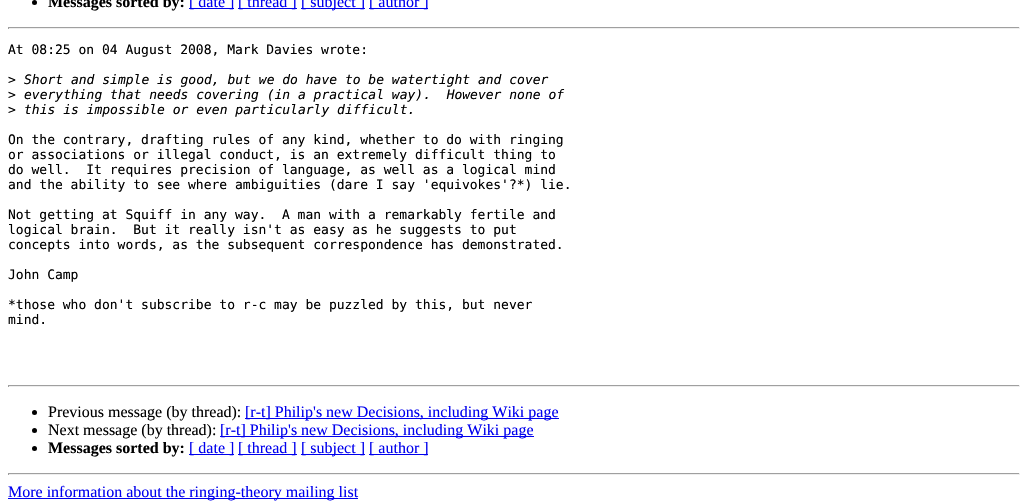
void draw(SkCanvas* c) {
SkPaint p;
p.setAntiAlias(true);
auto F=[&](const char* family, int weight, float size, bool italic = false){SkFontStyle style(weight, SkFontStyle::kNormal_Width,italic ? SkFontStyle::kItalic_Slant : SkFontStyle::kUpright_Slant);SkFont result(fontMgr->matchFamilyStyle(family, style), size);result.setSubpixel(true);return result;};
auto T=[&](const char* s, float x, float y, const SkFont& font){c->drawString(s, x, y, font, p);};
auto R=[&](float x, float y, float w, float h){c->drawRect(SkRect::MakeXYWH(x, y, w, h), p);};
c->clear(0xffffffff);
p.setColor(0xff000000);
c->drawCircle(34.5,2.5,2.5,p);
auto f1 = F("Liberation Serif",700,16);
T("Messages sorted by:",48,7,f1);
p.setColor(0xff0000ee);
R(189,8,45,1);
auto f2 = F("Liberation Serif",400,16);
T("[ date ]",189,7,f2);
R(238,8,59,1);
T("[ thread ]",238,7,f2);
R(301,8,64,1);
T("[ subject ]",301,7,f2);
R(369,8,59,1);
T("[ author ]",369,7,f2);
p.setColor(0xff9f9f9f);
R(8,27,1012,1);
p.setColor(0xffeeeeee);
R(1019,27,1,2);
R(8,28,1012,1);
p.setColor(0xff9f9f9f);
R(8,27,1,2);
auto f3 = F("DejaVu Sans Mono",400,13);
p.setColor(0xff000000);
T("At 08:25 on 04 August 2008, Mark Davies wrote:",8,54,f3);
T(">",8,84,f3);
auto f4 = F("DejaVu Sans Mono",400,13,true);
T("Short and simple is good, but we do have to be watertight and cover",24,84,f4);
T(">",8,99,f3);
T("everything that needs covering (in a practical way).  However none of",24,99,f4);
T(">",8,114,f3);
T("this is impossible or even particularly difficult.",24,114,f4);
T("On the contrary, drafting rules of any kind, whether to do with ringing",8,144,f3);
T("or associations or illegal conduct, is an extremely difficult thing to",8,159,f3);
T("do well.  It requires precision of language, as well as a logical mind",8,174,f3);
T("and the ability to see where ambiguities (dare I say 'equivokes'?*) lie.",8,189,f3);
T("Not getting at Squiff in any way.  A man with a remarkably fertile and",8,219,f3);
T("logical brain.  But it really isn't as easy as he suggests to put",8,234,f3);
T("concepts into words, as the subsequent correspondence has demonstrated.",8,249,f3);
T("John Camp",8,279,f3);
T("*those who don't subscribe to r-c may be puzzled by this, but never",8,309,f3);
T("mind.",8,324,f3);
p.setColor(0xff9f9f9f);
R(8,385,1012,1);
p.setColor(0xffeeeeee);
R(1019,385,1,2);
R(8,386,1012,1);
p.setColor(0xff9f9f9f);
R(8,385,1,2);
p.setColor(0xff000000);
c->drawCircle(34.5,412.5,2.5,p);
T("Previous message (by thread):",48,417,f2);
p.setColor(0xff0000ee);
R(245,418,314,1);
T("[r-t] Philip's new Decisions, including Wiki page",245,417,f2);
p.setColor(0xff000000);
c->drawCircle(34.5,430.5,2.5,p);
T("Next message (by thread):",48,435,f2);
p.setColor(0xff0000ee);
R(220,436,314,1);
T("[r-t] Philip's new Decisions, including Wiki page",220,435,f2);
p.setColor(0xff000000);
c->drawCircle(34.5,448.5,2.5,p);
T("Messages sorted by:",48,453,f1);
p.setColor(0xff0000ee);
R(189,454,45,1);
T("[ date ]",189,453,f2);
R(238,454,59,1);
T("[ thread ]",238,453,f2);
R(301,454,64,1);
T("[ subject ]",301,453,f2);
R(369,454,59,1);
T("[ author ]",369,453,f2);
p.setColor(0xff9f9f9f);
R(8,473,1012,1);
p.setColor(0xffeeeeee);
R(1019,473,1,2);
R(8,474,1012,1);
p.setColor(0xff9f9f9f);
R(8,473,1,2);
p.setColor(0xff0000ee);
R(8,498,350,1);
T("More information about the ringing-theory mailing list",8,497,f2);
}
